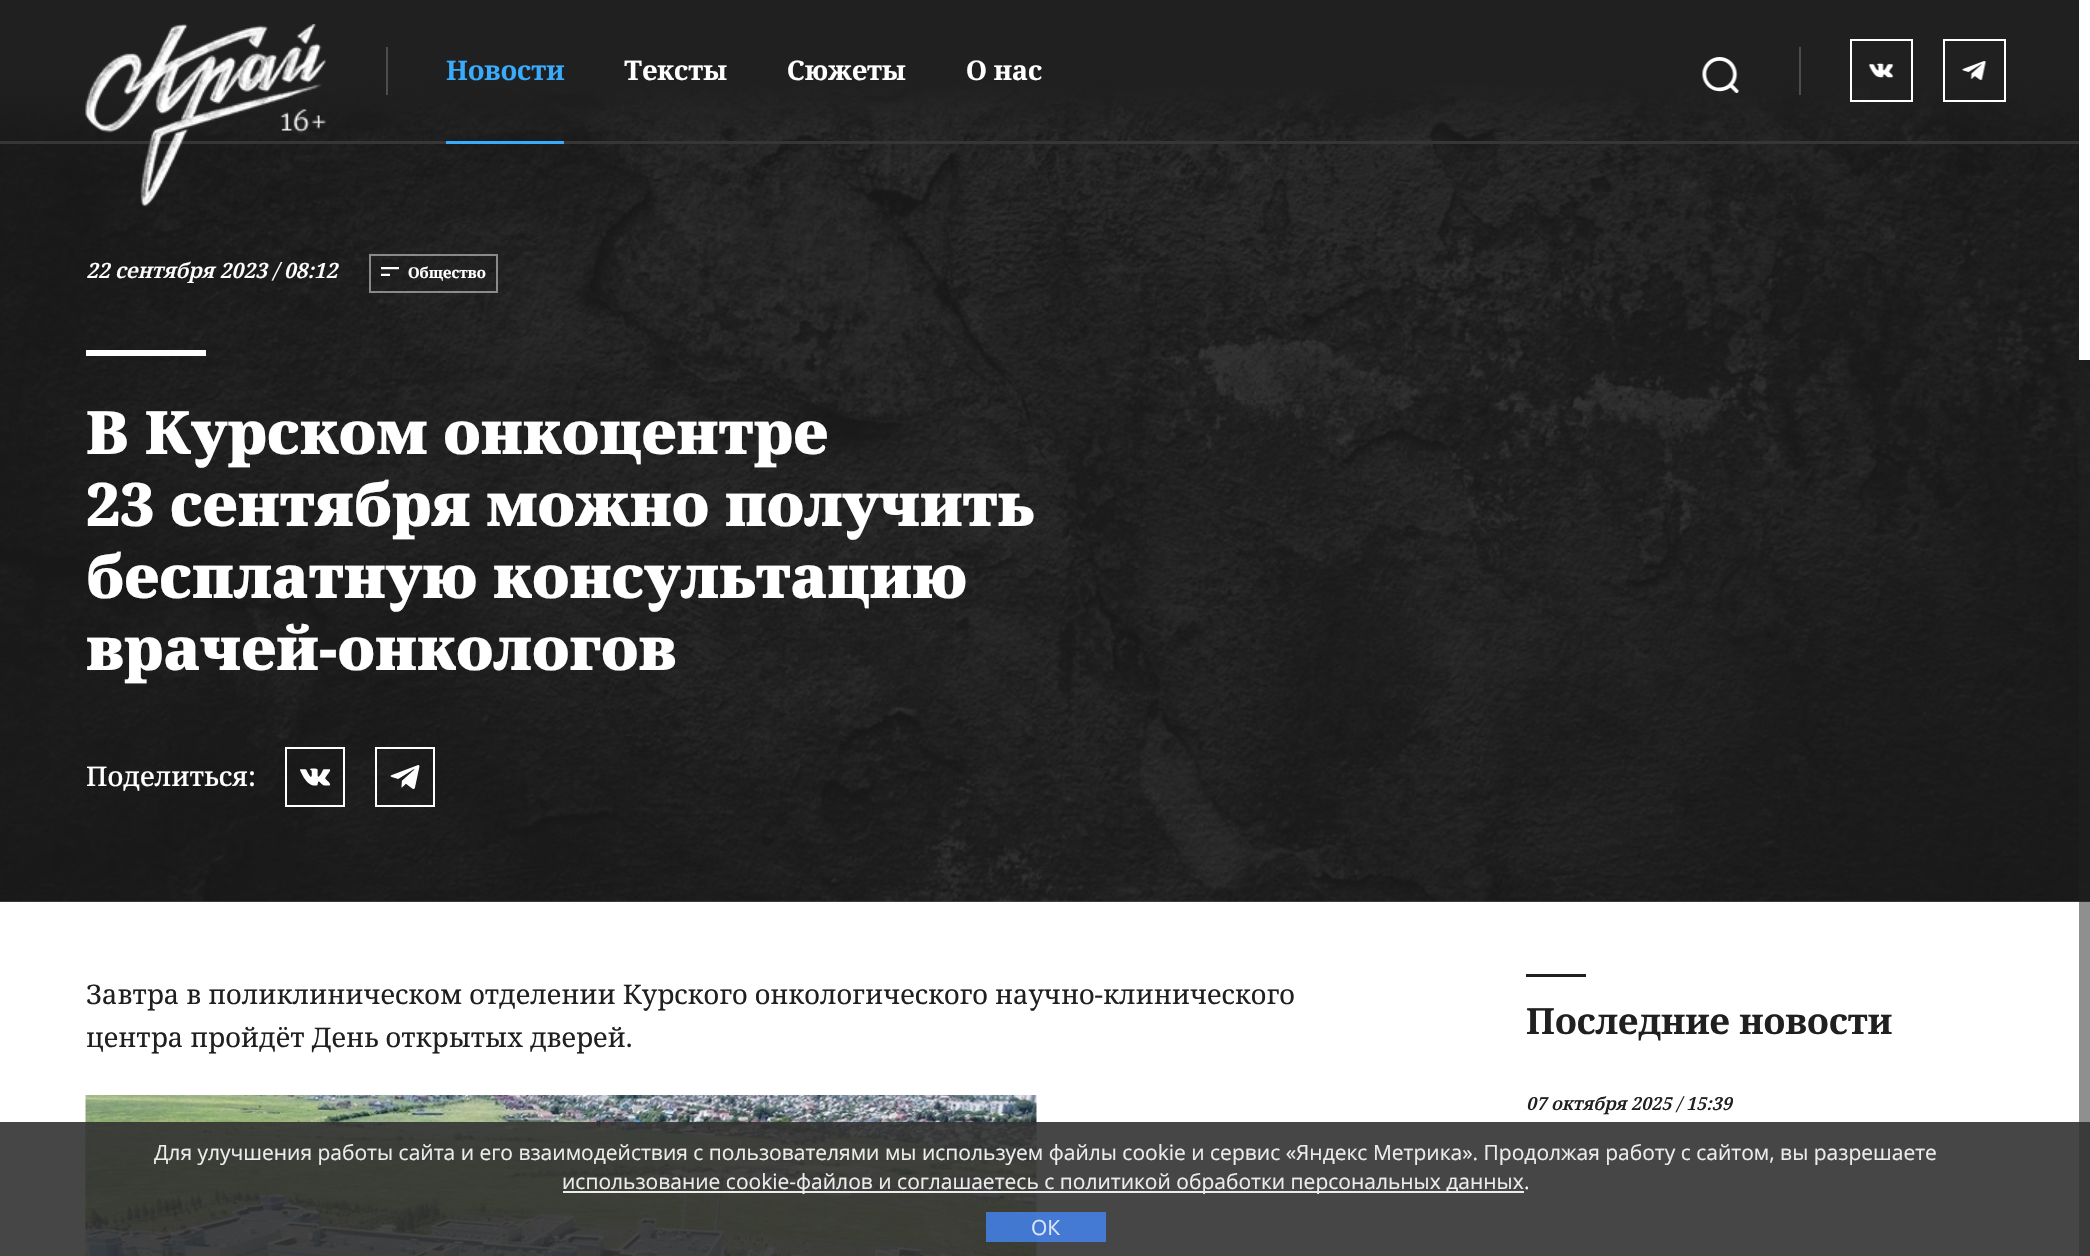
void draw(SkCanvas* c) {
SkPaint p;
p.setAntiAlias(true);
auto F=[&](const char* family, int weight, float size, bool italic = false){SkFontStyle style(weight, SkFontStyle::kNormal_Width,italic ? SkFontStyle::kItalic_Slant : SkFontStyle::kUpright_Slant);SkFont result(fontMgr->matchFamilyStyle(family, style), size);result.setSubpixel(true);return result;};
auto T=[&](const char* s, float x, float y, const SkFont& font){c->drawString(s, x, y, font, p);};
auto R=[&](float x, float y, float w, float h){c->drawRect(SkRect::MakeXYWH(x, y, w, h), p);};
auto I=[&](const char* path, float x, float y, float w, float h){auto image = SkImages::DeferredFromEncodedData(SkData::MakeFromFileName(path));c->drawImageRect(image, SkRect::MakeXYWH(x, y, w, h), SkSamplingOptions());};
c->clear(0xffffffff);
p.setColor(0xff585858);
R(0,901,2090,1);
I("5.png",0,0,2090,902);
p.setColor(0xff363636);
R(0,141,2079,3);
I("1.png",85,24,241,182);
p.setColor(0xff4d4d4d);
R(386,47,2,48);
p.setColor(0xff3aaafc);
R(446,141,118,3);
auto f1 = F("Noto Serif",700,27);
T("Новости",446,80,f1);
p.setColor(0xffffffff);
T("Тексты",624,80,f1);
T("Сюжеты",787,80,f1);
T("О нас",966,80,f1);
I("2.png",1702,57,37,36);
p.setColor(0xff4c4c4c);
R(1799,47,2,48);
p.setStroke(true);
p.setStrokeWidth(2);
p.setColor(0xffffffff);
c->drawRect(SkRect::MakeXYWH(1851,40,61,61),p);
I("3.png",1868,63,26,15);
c->drawRect(SkRect::MakeXYWH(1944,40,61,61),p);
I("4.png",1962,61,24,19);
auto f2 = F("Noto Serif",600,21,true);
p.setStroke(false);
T("22 сентября 2023 / 08:12",86,278,f2);
p.setStroke(true);
p.setColor(0x78ffffff);
c->drawRect(SkRect::MakeXYWH(370,255,127,37),p);
I("6.png",381,267,18,9);
auto f3 = F("Noto Serif",700,15);
p.setStroke(false);
p.setColor(0xffffffff);
T("Общество",408,278,f3);
R(86,350,120,6);
auto f4 = F("Noto Serif",900,60);
T("В Курском онкоцентре",86,454,f4);
T("23 сентября можно получить",86,526,f4);
T("бесплатную консультацию",86,598,f4);
T("врачей-онкологов",86,670,f4);
auto f5 = F("Noto Serif",500,27);
T("Поделиться:",86,786,f5);
p.setStroke(true);
c->drawRect(SkRect::MakeXYWH(286,748,58,58),p);
I("7.png",300,768,30,18);
c->drawRect(SkRect::MakeXYWH(376,748,58,58),p);
I("8.png",390,765,30,24);
auto f6 = F("Noto Serif",400,27);
p.setStroke(false);
p.setColor(0xff202020);
T("Завтра в поликлиническом отделении Курского онкологического научно-клинического",86,1004,f6);
T("центра пройдёт День открытых дверей.",86,1047,f6);
I("9.png",85,1095,952,161);
R(1526,974,60,3);
auto f7 = F("Noto Serif",700,36);
T("Последние новости",1526,1034,f7);
p.setColor(0xfff2f2f2);
R(1526,1235,480,2);
auto f8 = F("Noto Serif",600,18,true);
p.setColor(0xff202020);
T("07 октября 2025 / 15:39",1526,1110,f8);
p.setColor(0x80202020);
R(2079,368,11,888);
p.setColor(0xffffffff);
R(2079,0,11,360);
p.setColor(0xe6323232);
R(0,1122,2090,134);
auto f9 = F("Open Sans",400,21);
p.setColor(0xffececec);
T("Для улучшения работы сайта и его взаимодействия с пользователями мы используем файлы cookie и сервис «Яндекс Метрика». Продолжая работу с сайтом, вы разрешаете",154,1160,f9);
p.setColor(0xe6ffffff);
R(563,1191,961,2);
p.setColor(0xffececec);
T("использование cookie-файлов и соглашаетесь с политикой обработки персональных данных",562,1189,f9);
p.setColor(0xffffffff);
T(".",1524,1189,f9);
p.setColor(0xcf4285f4);
R(986,1212,120,30);
p.setColor(0xffdbe5f7);
T("ОК",1031,1235,f9);
}
